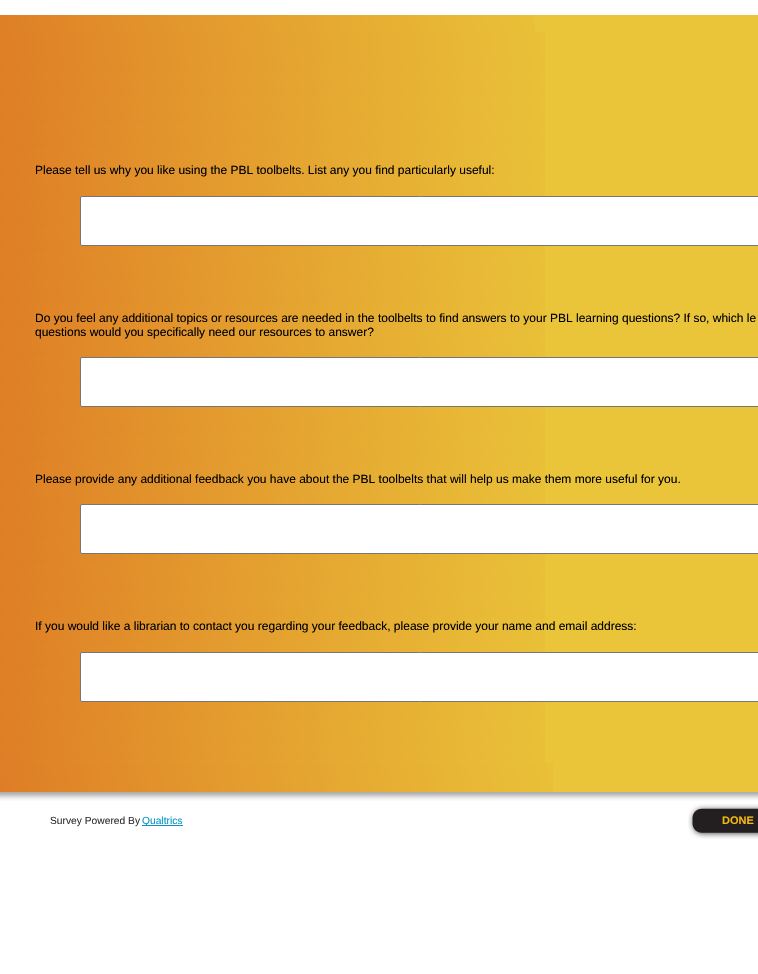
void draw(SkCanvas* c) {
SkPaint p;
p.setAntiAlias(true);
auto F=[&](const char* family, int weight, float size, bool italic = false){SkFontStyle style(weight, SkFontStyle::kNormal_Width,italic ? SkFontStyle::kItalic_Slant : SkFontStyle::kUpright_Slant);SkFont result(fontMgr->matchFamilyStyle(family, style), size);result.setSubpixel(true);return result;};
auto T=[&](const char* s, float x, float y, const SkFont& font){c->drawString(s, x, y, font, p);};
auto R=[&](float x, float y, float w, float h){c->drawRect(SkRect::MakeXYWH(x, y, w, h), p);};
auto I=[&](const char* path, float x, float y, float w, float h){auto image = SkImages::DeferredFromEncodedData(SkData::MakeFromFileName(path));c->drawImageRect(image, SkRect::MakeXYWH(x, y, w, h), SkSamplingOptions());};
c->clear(0xffffffff);
p.setColor(0xffeac439);
R(535,15,223,17);
I("1.png",0,15,535,17);
R(545,32,213,731);
I("2.png",0,32,545,731);
I("3.png",0,45,545,705);
auto f1 = F("Liberation Sans",400,12);
p.setColor(0xff000000);
T("Please tell us why you like using the PBL toolbelts. List any you find particularly useful:",35,174,f1);
p.setColor(0xffffffff);
c->drawRoundRect(SkRect::MakeXYWH(80.5,196.5,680,49),1.5,1.5,p);
p.setStroke(true);
p.setStrokeWidth(1);
p.setColor(0xff767676);
c->drawRoundRect(SkRect::MakeXYWH(80.5,196.5,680,49),1.5,1.5,p);
p.setStroke(false);
p.setColor(0xff000000);
T("Do you feel any additional topics or resources are needed in the toolbelts to find answers to your PBL learning questions? If so, which le",35,322,f1);
T("questions would you specifically need our resources to answer?",35,336,f1);
p.setColor(0xffffffff);
c->drawRoundRect(SkRect::MakeXYWH(80.5,357.5,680,49),1.5,1.5,p);
p.setStroke(true);
p.setColor(0xff767676);
c->drawRoundRect(SkRect::MakeXYWH(80.5,357.5,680,49),1.5,1.5,p);
p.setStroke(false);
p.setColor(0xff000000);
T("Please provide any additional feedback you have about the PBL toolbelts that will help us make them more useful for you.",35,483,f1);
p.setColor(0xffffffff);
c->drawRoundRect(SkRect::MakeXYWH(80.5,504.5,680,49),1.5,1.5,p);
p.setStroke(true);
p.setColor(0xff767676);
c->drawRoundRect(SkRect::MakeXYWH(80.5,504.5,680,49),1.5,1.5,p);
p.setStroke(false);
p.setColor(0xff000000);
T("If you would like a librarian to contact you regarding your feedback, please provide your name and email address:",35,630,f1);
p.setColor(0xffffffff);
c->drawRoundRect(SkRect::MakeXYWH(80.5,652.5,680,49),1.5,1.5,p);
p.setStroke(true);
p.setColor(0xff767676);
c->drawRoundRect(SkRect::MakeXYWH(80.5,652.5,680,49),1.5,1.5,p);
I("4.png",0,792,758,9);
p.setStroke(false);
p.setColor(0xffeac439);
R(553,763,205,29);
I("5.png",0,763,553,29);
auto f2 = F("Liberation Sans",400,10.25);
p.setColor(0xff333333);
T("Survey Powered By",50,824,f2);
p.setColor(0xff0594c6);
R(142,825,41,1);
T("Qualtrics",142,824,f2);
I("6.png",688,804,19,35);
I("7.png",707,804,51,35);
auto f3 = F("Liberation Sans",700,11);
p.setColor(0xfff2b90f);
T("DONE",722,824,f3);
}
